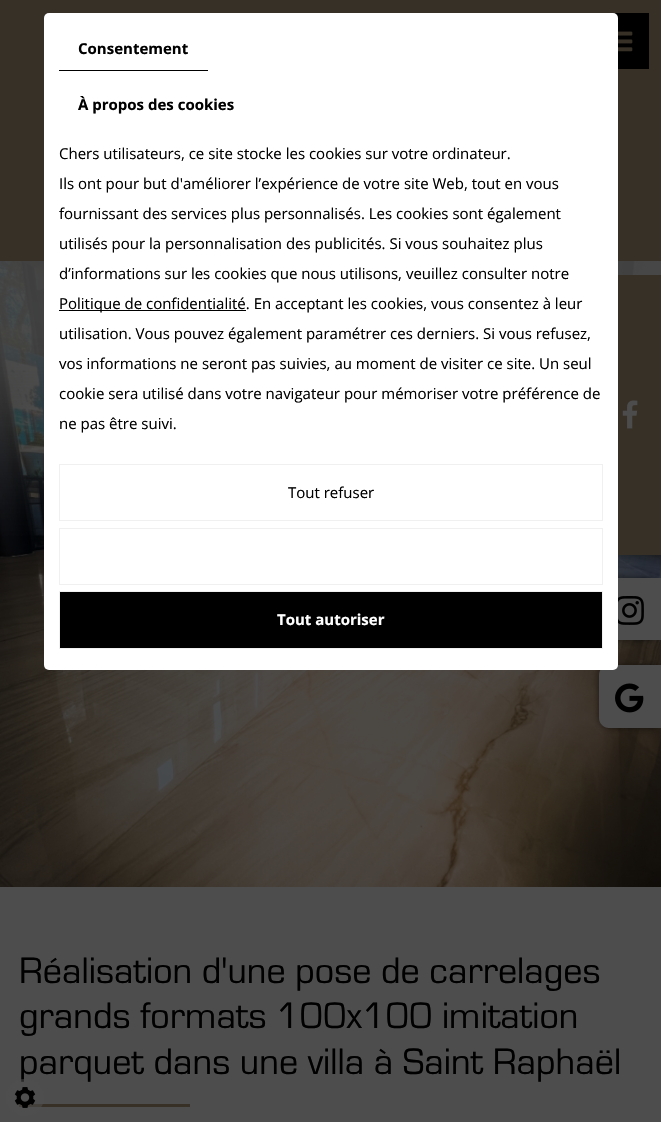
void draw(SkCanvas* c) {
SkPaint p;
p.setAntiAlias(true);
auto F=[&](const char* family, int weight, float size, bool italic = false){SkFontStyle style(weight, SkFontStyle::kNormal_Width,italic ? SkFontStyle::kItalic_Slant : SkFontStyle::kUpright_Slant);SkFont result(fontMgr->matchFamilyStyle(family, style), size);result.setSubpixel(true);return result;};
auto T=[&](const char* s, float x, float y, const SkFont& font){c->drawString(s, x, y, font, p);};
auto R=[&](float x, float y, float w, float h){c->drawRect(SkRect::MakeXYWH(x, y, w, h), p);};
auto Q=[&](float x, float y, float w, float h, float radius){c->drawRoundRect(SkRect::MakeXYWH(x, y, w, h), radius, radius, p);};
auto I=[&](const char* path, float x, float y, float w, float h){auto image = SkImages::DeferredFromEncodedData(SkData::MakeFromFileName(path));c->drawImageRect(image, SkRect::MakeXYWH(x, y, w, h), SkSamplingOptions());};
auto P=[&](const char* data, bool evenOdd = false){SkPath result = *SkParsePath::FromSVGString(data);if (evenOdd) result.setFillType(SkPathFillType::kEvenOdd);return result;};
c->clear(0xff4d4d4d);
p.setColor(0xff373027);
R(0,0,661,261);
I("1.png",0,261,661,626);
I("2.png",0,261,661,275);
p.setColor(0x80000000);
p.setMaskFilter(SkMaskFilter::MakeBlur(kNormal_SkBlurStyle, 3));
c->drawRoundRect(SkRect::MakeXYWH(599,578,62,62),10,10,p);
p.setMaskFilter(nullptr);
p.setMaskFilter(SkMaskFilter::MakeBlur(kNormal_SkBlurStyle, 3));
c->drawRoundRect(SkRect::MakeXYWH(599,665,62,63),10,10,p);
p.setMaskFilter(nullptr);
p.setColor(0xff4d4d4d);
c->drawPath(P("M609 665h52v63h-52c-5.5 0-10-4.5-10-10v-43c0-5.5 4.5-10 10-10z"),p);
p.setColor(0xff000000);
R(613,13,36,56);
p.setColor(0xffffffff);
Q(44,13,574,657,5);
p.setColor(0xff000000);
R(59,70,149,1);
auto f1 = F("Open Sans",700,15);
T("Consentement",78,54,f1);
T("À propos des cookies",78,110,f1);
auto f2 = F("Open Sans",400,15);
T("Chers utilisateurs, ce site stocke les cookies sur votre ordinateur.",59,159,f2);
T("Ils ont pour but d'améliorer l’expérience de votre site Web, tout en vous",59,189,f2);
T("fournissant des services plus personnalisés. Les cookies sont également",59,219,f2);
T("utilisés pour la personnalisation des publicités. Si vous souhaitez plus",59,249,f2);
T("d’informations sur les cookies que nous utilisons, veuillez consulter notre",59,279,f2);
R(59,310,187,1);
T("Politique de confidentialité. En acceptant les cookies, vous consentez à leur",59,309,f2);
T("utilisation. Vous pouvez également paramétrer ces derniers. Si vous refusez,",59,339,f2);
T("vos informations ne seront pas suivies, au moment de visiter ce site. Un seul",59,369,f2);
T("cookie sera utilisé dans votre navigateur pour mémoriser votre préférence de",59,399,f2);
T("ne pas être suivi.",59,429,f2);
p.setStroke(true);
p.setStrokeWidth(1);
p.setColor(0xfff0f0f0);
c->drawRect(SkRect::MakeXYWH(59.5,464.5,543,56),p);
p.setStroke(false);
p.setColor(0xff000000);
T("Tout refuser",288,498,f2);
p.setStroke(true);
p.setColor(0xfff0f0f0);
c->drawRect(SkRect::MakeXYWH(59.5,528.5,543,56),p);
p.setStroke(false);
p.setColor(0xff000000);
c->drawRect(SkRect::MakeXYWH(59.5,591.5,543,57),p);
p.setStroke(true);
p.setColor(0xfff0f0f0);
c->drawRect(SkRect::MakeXYWH(59.5,591.5,543,57),p);
p.setStroke(false);
p.setColor(0xffffffff);
T("Tout autoriser",277,625,f1);
p.setColor(0xff373027);
R(618,275,43,280);
I("3.png",622,400,16,29);
p.setColor(0xff4d4d4d);
R(618,578,43,62);
I("4.png",618,596,26,29);
I("5.png",615,683,29,30);
I("6.png",618,31,15,21);
auto f3 = F("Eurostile",400,38.25);
p.setColor(0xff000000);
T("Réalisation d'une pose de carrelages",19,983,f3);
T("grands formats 100x100 imitation",19,1028,f3);
T("parquet dans une villa à Saint Raphaël",19,1074,f3);
p.setColor(0xff373027);
R(19,1104,171,3);
p.setColor(0x8a4d4d4d);
Q(6,1079,38,37,18.5);
I("7.png",14,1087,22,21);
}
